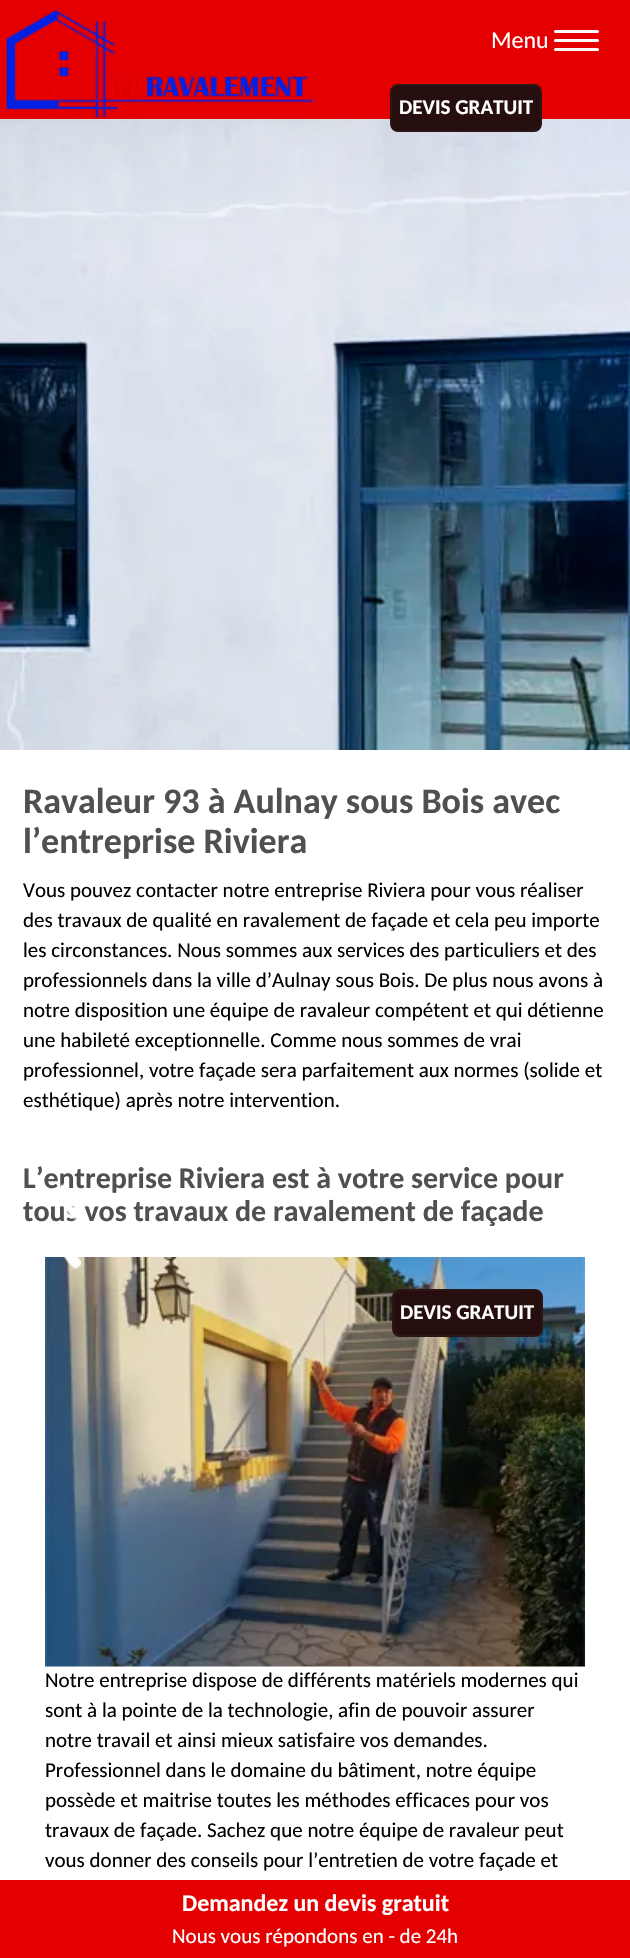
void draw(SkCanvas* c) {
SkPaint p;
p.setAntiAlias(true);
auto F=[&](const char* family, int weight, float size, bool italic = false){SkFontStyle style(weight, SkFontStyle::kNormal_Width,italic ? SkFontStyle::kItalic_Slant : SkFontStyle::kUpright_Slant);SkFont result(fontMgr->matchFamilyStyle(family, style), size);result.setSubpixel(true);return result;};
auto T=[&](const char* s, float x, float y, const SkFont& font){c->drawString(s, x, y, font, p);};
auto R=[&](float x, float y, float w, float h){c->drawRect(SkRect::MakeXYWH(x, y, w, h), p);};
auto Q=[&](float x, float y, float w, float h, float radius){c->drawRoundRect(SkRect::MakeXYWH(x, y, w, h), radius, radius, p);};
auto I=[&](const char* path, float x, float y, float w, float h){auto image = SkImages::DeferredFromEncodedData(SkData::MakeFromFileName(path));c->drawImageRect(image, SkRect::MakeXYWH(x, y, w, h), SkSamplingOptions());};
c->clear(0xffffffff);
p.setColor(0xffe40000);
R(0,0,630,119);
I("1.png",5,9,309,110);
auto f1 = F("Carlito",400,24);
p.setColor(0xffffffff);
T("Menu",491,48,f1);
Q(554,30,45,3,1.5);
Q(554,39,45,3,1.5);
Q(554,48,45,3,1.5);
I("4.png",0,119,630,631);
p.setColor(0xff260e0e);
c->drawRoundRect(SkRect::MakeXYWH(391,85,150,46),7,7,p);
p.setStroke(true);
p.setStrokeWidth(2);
p.setColor(0xff2c1515);
c->drawRoundRect(SkRect::MakeXYWH(391,85,150,46),7,7,p);
auto f2 = F("Carlito",700,21);
p.setStroke(false);
p.setColor(0xffffffff);
T("DEVIS GRATUIT",399,114,f2);
auto f3 = F("Carlito",700,30);
p.setColor(0xff505050);
T("L’entreprise Riviera est à votre service pour",23,1188,f3);
T("tous vos travaux de ravalement de façade",23,1221,f3);
I("2.png",59,1183,18,37);
I("5.png",45,1257,540,410);
I("3.png",63,1257,19,13);
p.setColor(0xff260e0e);
c->drawRoundRect(SkRect::MakeXYWH(393,1290,149,46),7,7,p);
p.setStroke(true);
p.setColor(0xff2c1515);
c->drawRoundRect(SkRect::MakeXYWH(393,1290,149,46),7,7,p);
p.setStroke(false);
p.setColor(0xffffffff);
T("DEVIS GRATUIT",400,1319,f2);
auto f4 = F("Carlito",700,36);
p.setColor(0xff505050);
T("Ravaleur 93 à Aulnay sous Bois avec",23,813,f4);
T("l’entreprise Riviera",23,853,f4);
auto f5 = F("Carlito",400,21);
p.setColor(0xff000000);
T("Vous pouvez contacter notre entreprise Riviera pour vous réaliser",23,897,f5);
T("des travaux de qualité en ravalement de façade et cela peu importe",23,927,f5);
T("les circonstances. Nous sommes aux services des particuliers et des",23,957,f5);
T("professionnels dans la ville d’Aulnay sous Bois. De plus nous avons à",23,987,f5);
T("notre disposition une équipe de ravaleur compétent et qui détienne",23,1017,f5);
T("une habileté exceptionnelle. Comme nous sommes de vrai",23,1047,f5);
T("professionnel, votre façade sera parfaitement aux normes (solide et",23,1077,f5);
T("esthétique) après notre intervention.",23,1107,f5);
T("Notre entreprise dispose de différents matériels modernes qui",45,1687,f5);
T("sont à la pointe de la technologie, afin de pouvoir assurer",45,1717,f5);
T("notre travail et ainsi mieux satisfaire vos demandes.",45,1747,f5);
T("Professionnel dans le domaine du bâtiment, notre équipe",45,1777,f5);
T("possède et maitrise toutes les méthodes efficaces pour vos",45,1807,f5);
T("travaux de façade. Sachez que notre équipe de ravaleur peut",45,1837,f5);
T("vous donner des conseils pour l’entretien de votre façade et",45,1867,f5);
p.setColor(0xffe40000);
R(0,1880,630,78);
auto f6 = F("Carlito",700,24);
p.setColor(0xffffffff);
T("Demandez un devis gratuit",182,1911,f6);
T("Nous vous répondons en - de 24h",172,1943,f5);
}
